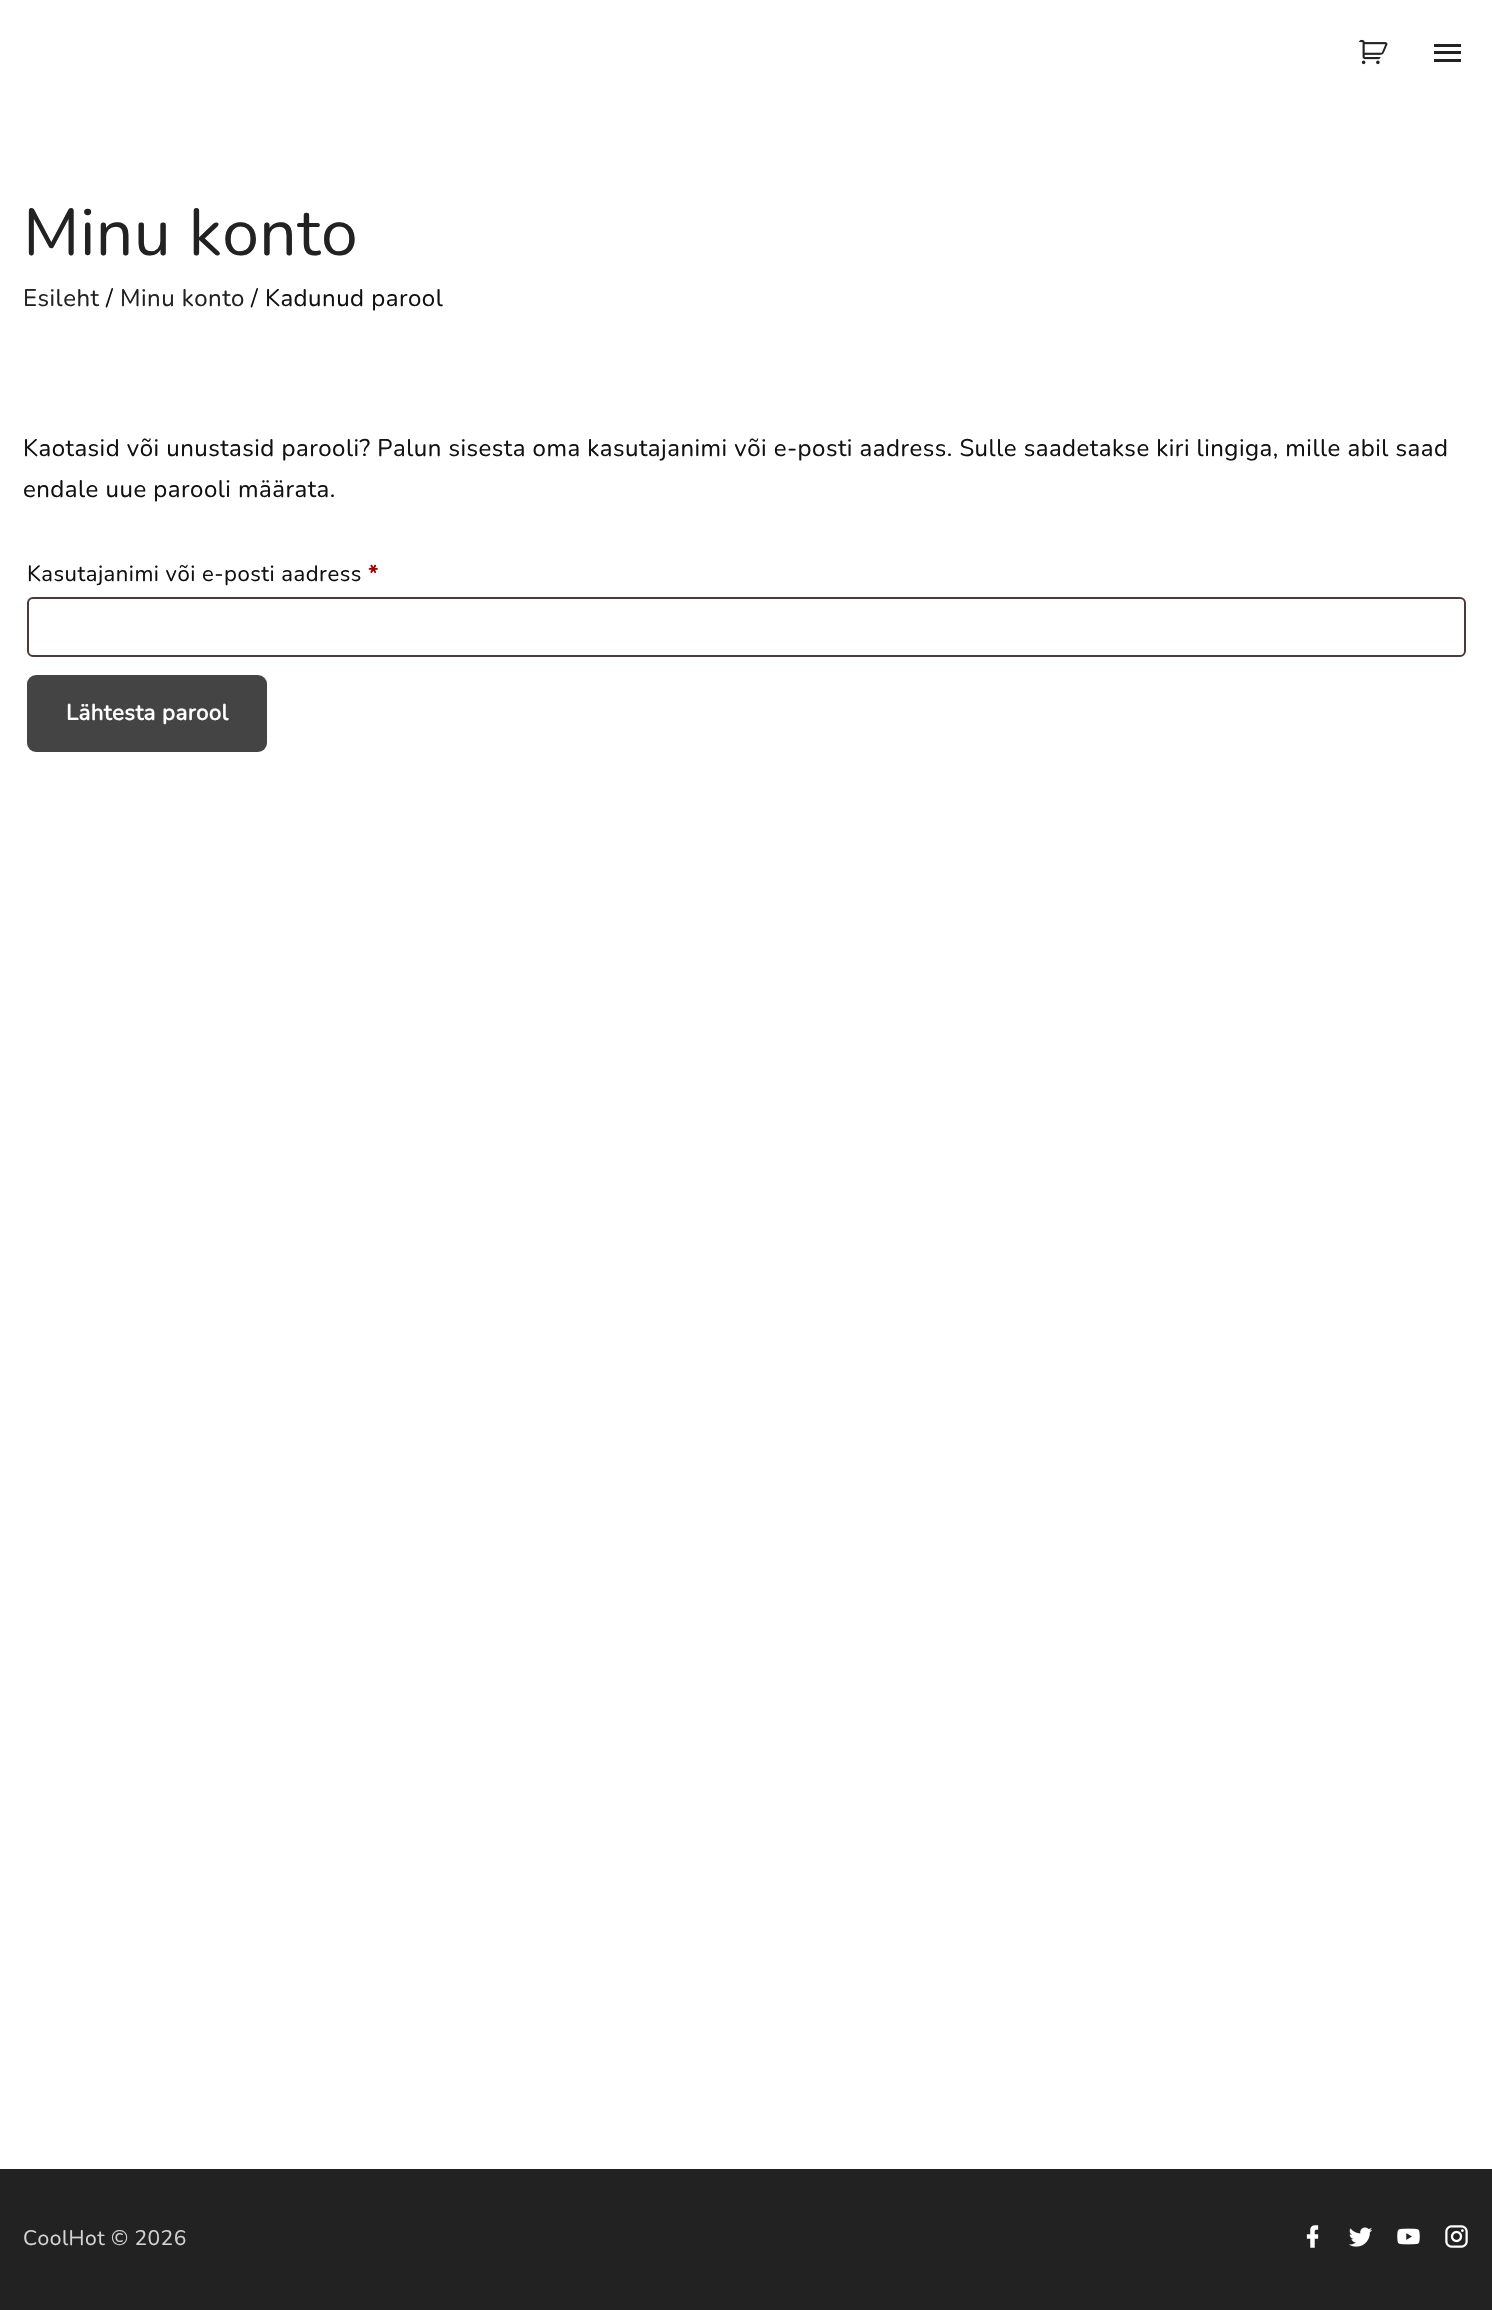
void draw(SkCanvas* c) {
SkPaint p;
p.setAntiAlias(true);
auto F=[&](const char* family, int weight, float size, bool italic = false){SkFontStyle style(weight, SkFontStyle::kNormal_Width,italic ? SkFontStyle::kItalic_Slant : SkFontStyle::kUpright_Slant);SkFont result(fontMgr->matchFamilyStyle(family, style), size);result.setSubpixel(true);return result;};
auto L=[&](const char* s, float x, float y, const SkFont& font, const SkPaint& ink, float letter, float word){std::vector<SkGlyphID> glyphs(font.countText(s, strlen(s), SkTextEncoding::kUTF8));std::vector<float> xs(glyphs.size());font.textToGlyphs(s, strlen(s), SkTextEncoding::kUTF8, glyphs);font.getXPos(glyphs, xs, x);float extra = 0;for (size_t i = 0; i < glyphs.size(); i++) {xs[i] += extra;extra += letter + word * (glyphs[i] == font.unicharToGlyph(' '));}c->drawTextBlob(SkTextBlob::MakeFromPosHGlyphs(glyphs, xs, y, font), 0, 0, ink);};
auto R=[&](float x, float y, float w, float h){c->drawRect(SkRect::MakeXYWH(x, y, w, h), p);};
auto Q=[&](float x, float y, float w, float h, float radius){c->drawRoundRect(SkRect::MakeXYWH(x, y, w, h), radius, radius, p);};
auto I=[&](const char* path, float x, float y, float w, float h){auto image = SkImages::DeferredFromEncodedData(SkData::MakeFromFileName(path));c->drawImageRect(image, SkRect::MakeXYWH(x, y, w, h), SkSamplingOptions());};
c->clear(0xffffffff);
I("1.png",1359,39,29,26);
p.setColor(0xff222222);
R(1434,51,27,3);
R(1434,44,27,3);
R(1434,59,27,3);
auto f1 = F("Nunito",200,66);
L("Minu konto",23,255,f1,p,.48,0);
auto f2 = F("Nunito",200,24);
L("Esileht",23,306,f2,p,.48,0);
p.setColor(0xff111111);
L("/",106,306,f2,p,.48,0);
p.setColor(0xff222222);
L("Minu konto",120,306,f2,p,.48,0);
p.setColor(0xff111111);
L("/ Kadunud parool",251,306,f2,p,.48,0);
L("Kaotasid või unustasid parooli? Palun sisesta oma kasutajanimi või e-posti aadress. Sulle saadetakse kiri lingiga, mille abil saad",23,456,f2,p,.48,0);
L("endale uue parooli määrata.",23,497,f2,p,.48,0);
auto f3 = F("Nunito",200,22.1);
L("Kasutajanimi või e-posti aadress",27,581,f3,p,.48,0);
auto f4 = F("Nunito",700,22.1);
p.setColor(0xffaa0000);
L("*",368,581,f4,p,.48,0);
p.setStroke(true);
p.setStrokeWidth(2);
p.setColor(0xff4d3939);
c->drawRoundRect(SkRect::MakeXYWH(28,598,1437,58),5,5,p);
p.setStroke(false);
p.setColor(0xff444444);
Q(27,675,240,77,9);
p.setColor(0xffffffff);
L("Lähtesta parool",66,720,f4,p,.5,0);
p.setColor(0xff222222);
R(0,2169,1492,141);
auto f5 = F("Nunito",200,21);
p.setColor(0xffd3d3d3);
L("CoolHot © 2026",23,2245,f5,p,.48,0);
I("2.png",1306,2225,13,23);
I("3.png",1349,2227,24,20);
I("4.png",1397,2228,23,17);
I("5.png",1445,2225,23,23);
}
